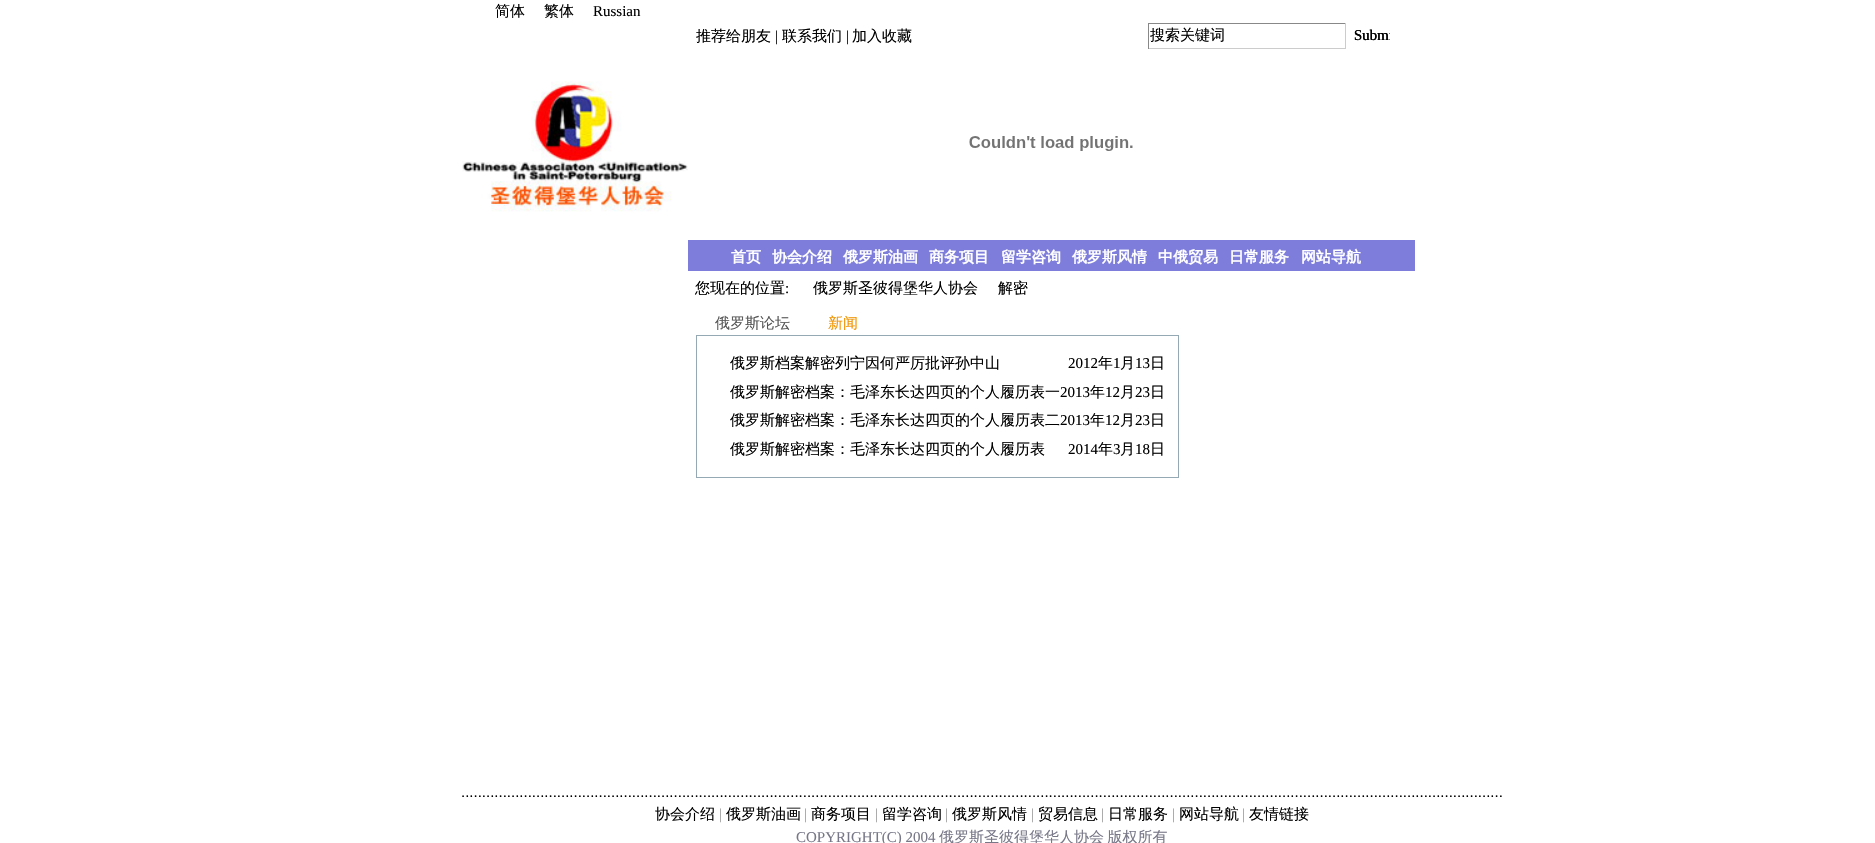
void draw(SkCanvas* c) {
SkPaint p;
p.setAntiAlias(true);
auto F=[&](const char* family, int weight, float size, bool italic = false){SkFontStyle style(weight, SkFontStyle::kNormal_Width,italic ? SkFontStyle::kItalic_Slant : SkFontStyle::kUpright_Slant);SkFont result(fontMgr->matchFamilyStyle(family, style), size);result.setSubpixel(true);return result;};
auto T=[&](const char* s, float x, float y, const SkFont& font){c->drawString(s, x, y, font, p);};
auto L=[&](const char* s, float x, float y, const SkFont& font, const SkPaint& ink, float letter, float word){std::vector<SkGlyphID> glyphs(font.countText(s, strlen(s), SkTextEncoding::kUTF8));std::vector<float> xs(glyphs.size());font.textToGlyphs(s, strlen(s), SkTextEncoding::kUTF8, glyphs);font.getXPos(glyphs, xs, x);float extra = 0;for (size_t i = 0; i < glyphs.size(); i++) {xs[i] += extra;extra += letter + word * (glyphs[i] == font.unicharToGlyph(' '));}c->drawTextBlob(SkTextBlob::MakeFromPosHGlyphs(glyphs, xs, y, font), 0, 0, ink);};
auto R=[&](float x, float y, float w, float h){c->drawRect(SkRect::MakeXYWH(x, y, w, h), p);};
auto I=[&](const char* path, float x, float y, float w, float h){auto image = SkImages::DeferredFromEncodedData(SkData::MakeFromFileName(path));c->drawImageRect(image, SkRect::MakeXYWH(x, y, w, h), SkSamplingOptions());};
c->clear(0xffffffff);
auto f1 = F("WenQuanYi Zen Hei",500,15);
p.setColor(0xff000000);
T("简体",495,16,f1);
T("繁体",544,16,f1);
auto f2 = F("Liberation Serif",400,15);
T("Russian",593,16,f2);
T("推荐给朋友",696,41,f1);
T("|",775,41,f2);
T("联系我们",782,41,f1);
T("|",846,41,f2);
T("加入收藏",852,41,f1);
p.setColor(0xff888888);
R(1148,23,198,1);
p.setColor(0xffcccccc);
R(1345,23,1,26);
R(1148,48,198,1);
p.setColor(0xff888888);
R(1148,23,1,26);
p.setColor(0xff000000);
T("搜索关键词",1150,40,f1);
I("1.png",1354,30,36,10);
c->save();
c->clipRect(SkRect::MakeXYWH(1354,26,36,20));
T("Submi",1354,40,f2);
c->restore();
I("2.png",462,81,226,131);
I("3.png",969,136,164,15);
p.setColor(0xff7e7ddb);
R(688,240,727,31);
auto f3 = F("WenQuanYi Zen Hei",700,15);
p.setColor(0xffffffff);
T("首页",731,262,f3);
T("协会介绍",772,262,f3);
T("俄罗斯油画",843,262,f3);
T("商务项目",929,262,f3);
T("留学咨询",1001,262,f3);
T("俄罗斯风情",1072,262,f3);
T("中俄贸易",1158,262,f3);
T("日常服务",1229,262,f3);
T("网站导航",1301,262,f3);
p.setColor(0xff000000);
T("您现在的位置",695,293,f1);
T(":",785,293,f2);
T("俄罗斯圣彼得堡华人协会",813,293,f1);
T("解密",998,293,f1);
p.setColor(0xff555555);
T("俄罗斯论坛",715,328,f1);
p.setColor(0xfff09403);
T("新闻",828,328,f1);
p.setStroke(true);
p.setStrokeWidth(1);
p.setColor(0xff94a9b3);
c->drawRect(SkRect::MakeXYWH(696.5,335.5,482,142),p);
p.setStroke(false);
p.setColor(0xff000000);
T("俄罗斯档案解密列宁因何严厉批评孙中山",730,368,f1);
T("2012",1068,368,f2);
T("年",1098,368,f1);
T("1",1113,368,f2);
T("月",1120,368,f1);
T("13",1135,368,f2);
T("日",1150,368,f1);
T("俄罗斯解密档案：毛泽东长达四页的个人履历表一",730,397,f1);
T("2013",1060,397,f2);
T("年",1090,397,f1);
T("12",1105,397,f2);
T("月",1120,397,f1);
T("23",1135,397,f2);
T("日",1150,397,f1);
T("俄罗斯解密档案：毛泽东长达四页的个人履历表二",730,425,f1);
T("2013",1060,425,f2);
T("年",1090,425,f1);
T("12",1105,425,f2);
T("月",1120,425,f1);
T("23",1135,425,f2);
T("日",1150,425,f1);
T("俄罗斯解密档案：毛泽东长达四页的个人履历表",730,454,f1);
T("2014",1068,454,f2);
T("年",1098,454,f1);
T("3",1113,454,f2);
T("月",1120,454,f1);
T("18",1135,454,f2);
T("日",1150,454,f1);
auto f4 = F("Liberation Sans",400,15);
T("..........................................................................................................................................................................................................................................................",461,797,f4);
T("协会介绍",655,819,f1);
p.setColor(0xff999999);
T("|",719,819,f2);
p.setColor(0xff000000);
T("俄罗斯油画",726,819,f1);
p.setColor(0xff999999);
T("|",804,819,f2);
p.setColor(0xff000000);
T("商务项目",811,819,f1);
p.setColor(0xff999999);
T("|",875,819,f2);
p.setColor(0xff000000);
T("留学咨询",882,819,f1);
p.setColor(0xff999999);
T("|",945,819,f2);
p.setColor(0xff000000);
T("俄罗斯风情",952,819,f1);
p.setColor(0xff999999);
T("|",1031,819,f2);
p.setColor(0xff000000);
T("贸易信息",1038,819,f1);
p.setColor(0xff999999);
T("|",1101,819,f2);
p.setColor(0xff000000);
T("日常服务",1108,819,f1);
p.setColor(0xff999999);
T("|",1172,819,f2);
p.setColor(0xff000000);
T("网站导航",1179,819,f1);
p.setColor(0xff999999);
T("|",1242,819,f2);
p.setColor(0xff000000);
T("友情链接",1249,819,f1);
p.setColor(0xff777788);
T("COPYRIGHT(C) 2004",796,842,f2);
L("俄罗斯圣彼得堡华人协会 版权所有",939,842,f1,p,0,-1);
}
